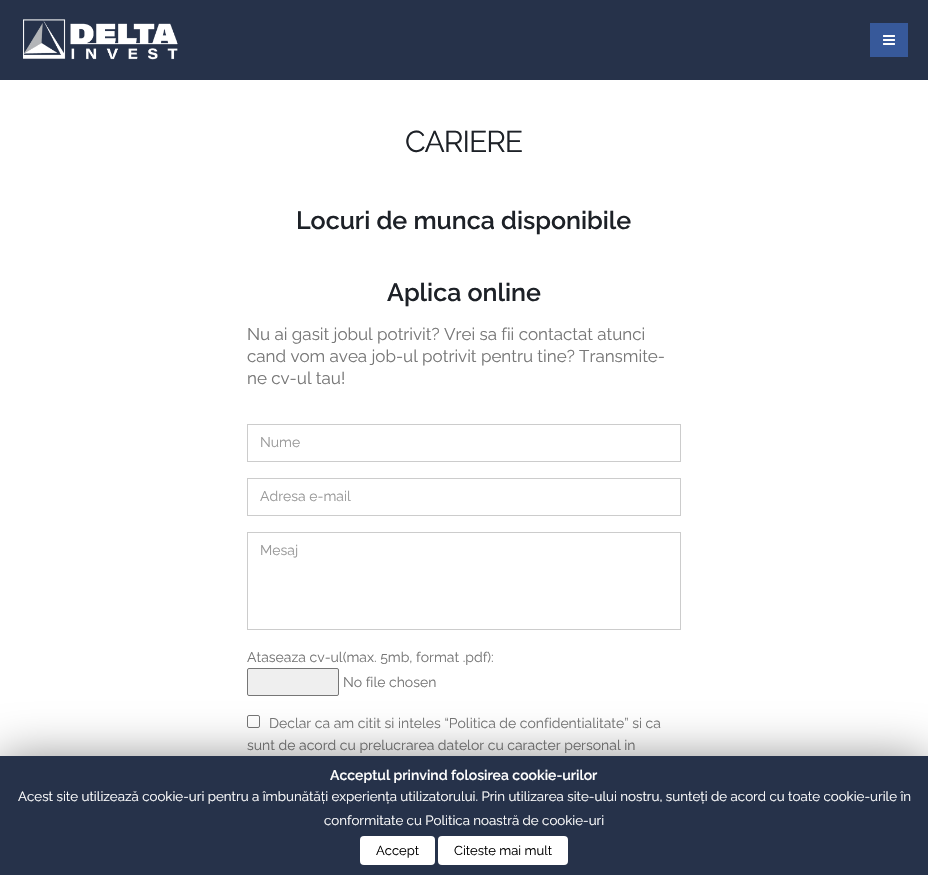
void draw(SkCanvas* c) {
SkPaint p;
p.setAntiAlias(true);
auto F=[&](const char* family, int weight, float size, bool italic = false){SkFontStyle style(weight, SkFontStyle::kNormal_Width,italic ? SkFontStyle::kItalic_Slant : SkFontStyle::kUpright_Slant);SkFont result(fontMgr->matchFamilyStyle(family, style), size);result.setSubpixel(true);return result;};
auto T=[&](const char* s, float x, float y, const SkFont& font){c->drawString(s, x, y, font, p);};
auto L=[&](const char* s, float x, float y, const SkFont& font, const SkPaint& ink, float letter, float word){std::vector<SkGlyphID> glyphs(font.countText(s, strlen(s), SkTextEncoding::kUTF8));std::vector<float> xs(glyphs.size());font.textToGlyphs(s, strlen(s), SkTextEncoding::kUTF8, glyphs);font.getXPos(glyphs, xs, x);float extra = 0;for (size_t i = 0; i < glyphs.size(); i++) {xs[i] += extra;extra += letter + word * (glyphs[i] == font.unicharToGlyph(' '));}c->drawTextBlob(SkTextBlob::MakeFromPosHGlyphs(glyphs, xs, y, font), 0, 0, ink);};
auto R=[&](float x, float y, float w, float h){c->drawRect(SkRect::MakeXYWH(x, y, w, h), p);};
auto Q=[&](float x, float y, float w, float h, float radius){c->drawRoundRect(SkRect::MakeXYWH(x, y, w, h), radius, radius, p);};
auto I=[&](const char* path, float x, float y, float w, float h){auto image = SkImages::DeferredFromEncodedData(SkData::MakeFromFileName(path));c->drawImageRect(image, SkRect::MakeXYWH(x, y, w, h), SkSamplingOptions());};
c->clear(0xffffffff);
p.setColor(0xff26324a);
R(0,0,928,80);
I("1.png",23,19,155,41);
p.setColor(0xff37599a);
R(870,23,38,34);
I("2.png",883,35,12,10);
auto f1 = F("Raleway",400,30);
p.setColor(0xff1d2127);
L("CARIERE",405,152,f1,p,-1,0);
auto f2 = F("Raleway",600,25);
T("Locuri de munca disponibile",296,229,f2);
T("Aplica online",387,301,f2);
auto f3 = F("Raleway",400,17);
p.setColor(0xff777777);
T("Nu ai gasit jobul potrivit? Vrei sa fii contactat atunci",247,340,f3);
T("cand vom avea job-ul potrivit pentru tine? Transmite-",247,362,f3);
T("ne cv-ul tau!",247,384,f3);
p.setStroke(true);
p.setStrokeWidth(1);
p.setColor(0xffcccccc);
c->drawRect(SkRect::MakeXYWH(247.5,424.5,433,37),p);
auto f4 = F("Raleway",400,14);
p.setStroke(false);
p.setColor(0xff999999);
T("Nume",260,447,f4);
p.setStroke(true);
p.setColor(0xffcccccc);
c->drawRect(SkRect::MakeXYWH(247.5,478.5,433,37),p);
p.setStroke(false);
p.setColor(0xff999999);
T("Adresa e-mail",260,501,f4);
p.setStroke(true);
p.setColor(0xffcccccc);
c->drawRect(SkRect::MakeXYWH(247.5,532.5,433,97),p);
p.setStroke(false);
p.setColor(0xff999999);
T("Mesaj",260,555,f4);
p.setColor(0xff777777);
T("Ataseaza cv-ul(max. 5mb, format .pdf):",247,662,f4);
p.setColor(0xffefefef);
c->drawRoundRect(SkRect::MakeXYWH(247.5,668.5,91,27),1.5,1.5,p);
p.setStroke(true);
p.setColor(0xff767676);
c->drawRoundRect(SkRect::MakeXYWH(247.5,668.5,91,27),1.5,1.5,p);
p.setStroke(false);
p.setColor(0xff777777);
T("No file chosen",343,687,f4);
p.setStroke(true);
p.setColor(0xff767676);
c->drawRoundRect(SkRect::MakeXYWH(247.5,715.5,12,12),1.5,1.5,p);
p.setStroke(false);
p.setColor(0xff777777);
T("Declar ca am citit si inteles “Politica de confidentialitate” si ca",269,728,f4);
T("sunt de acord cu prelucrarea datelor cu caracter personal in",247,750,f4);
p.setColor(0x80000000);
p.setMaskFilter(SkMaskFilter::MakeBlur(kNormal_SkBlurStyle, 25));
c->drawRect(SkRect::MakeXYWH(0,761,928,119),p);
p.setMaskFilter(nullptr);
p.setColor(0xff26324a);
R(0,756,928,119);
auto f5 = F("Raleway",600,14);
p.setColor(0xffffffff);
T("Acceptul prinvind folosirea cookie-urilor",330,780,f5);
auto f6 = F("Raleway",400,13.33);
T("Acest site utilizează cookie-uri pentru a îmbunătăți experiența utilizatorului. Prin utilizarea site-ului nostru, sunteți de acord cu toate cookie-urile în",18,801,f6);
T("conformitate cu Politica noastră de cookie-uri",324,825,f6);
Q(360,836,75,29,4);
auto f7 = F("Raleway",400,13);
p.setColor(0xff000000);
T("Accept",376,855,f7);
p.setColor(0xffffffff);
Q(438,836,130,29,4);
p.setColor(0xff000000);
T("Citeste mai mult",454,855,f7);
}
